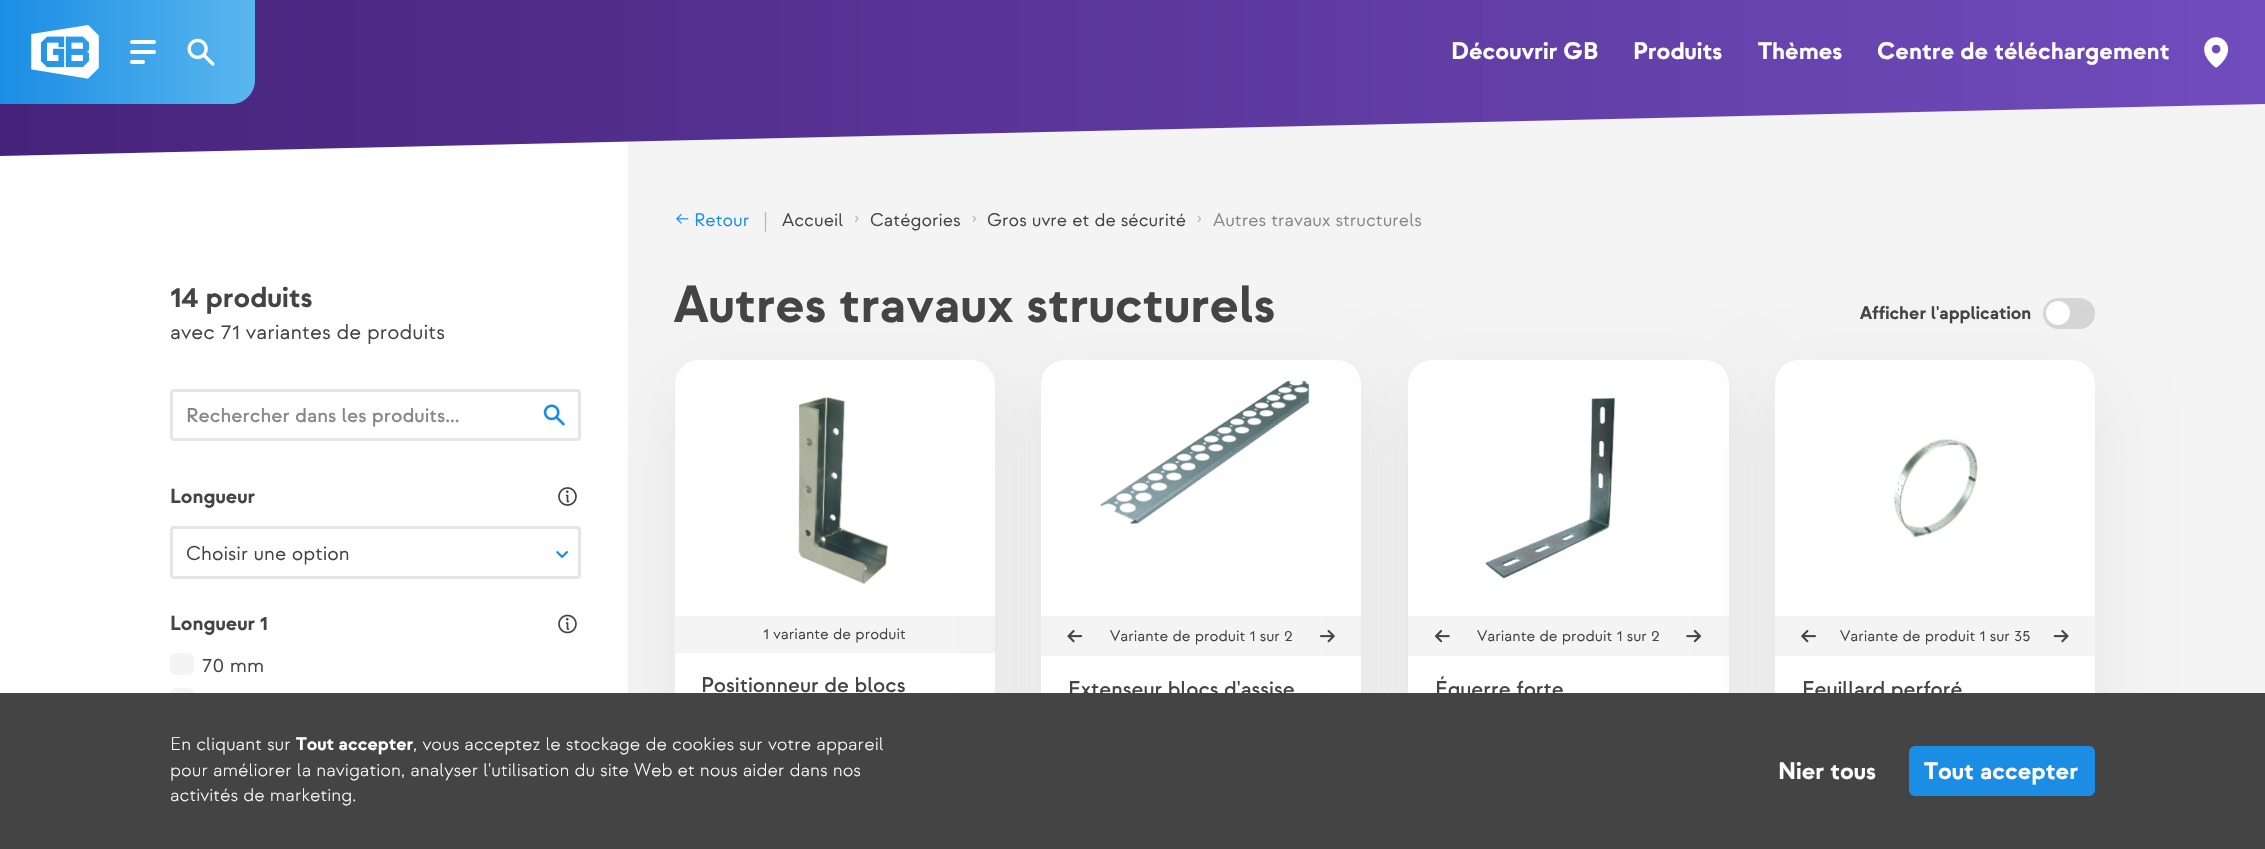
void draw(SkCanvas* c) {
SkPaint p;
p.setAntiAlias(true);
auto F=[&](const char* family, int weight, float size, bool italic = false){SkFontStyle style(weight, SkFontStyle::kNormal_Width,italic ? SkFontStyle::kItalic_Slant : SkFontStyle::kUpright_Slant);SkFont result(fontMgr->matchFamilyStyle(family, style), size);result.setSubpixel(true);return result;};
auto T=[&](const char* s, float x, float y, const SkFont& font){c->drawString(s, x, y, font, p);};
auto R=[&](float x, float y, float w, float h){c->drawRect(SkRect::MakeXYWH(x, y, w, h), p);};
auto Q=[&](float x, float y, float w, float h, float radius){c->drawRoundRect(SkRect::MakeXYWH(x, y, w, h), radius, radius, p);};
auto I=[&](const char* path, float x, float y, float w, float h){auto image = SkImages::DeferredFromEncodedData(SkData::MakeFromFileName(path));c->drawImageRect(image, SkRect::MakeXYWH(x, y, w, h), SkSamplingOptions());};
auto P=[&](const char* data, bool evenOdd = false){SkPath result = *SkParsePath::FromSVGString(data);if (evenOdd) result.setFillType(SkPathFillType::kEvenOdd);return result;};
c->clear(0xfff4f4f4);
p.setColor(0xffffffff);
R(0,141,628,552);
{
const SkColor colors[] = {0xff46237a,0xff704cbd};
const float stops[] = {0,1};
const SkPoint ends[] = {{-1.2,78}, {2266,78}};
p.setShader(SkGradientShader::MakeLinear(ends, colors, stops, 2, SkTileMode::kClamp));
p.setAlpha(255);
}
c->drawPath(P("M0 0v156l2265-52v-104z"),p);
{
const SkColor colors[] = {0xff1b8de4,0xff59b7ee};
const float stops[] = {0,1};
const SkPoint ends[] = {{0,52}, {255,52}};
p.setShader(SkGradientShader::MakeLinear(ends, colors, stops, 2, SkTileMode::kClamp));
p.setAlpha(255);
}
c->drawPath(P("M0 0h255v80c0 13.5-10.5 24-24 24h-231z"),p);
I("1.png",31,25,68,54);
p.setShader(nullptr);
p.setColor(0xffffffff);
Q(130,40,26,4,2);
Q(130,50,26,4,2);
Q(130,60,15,4,2);
I("2.png",187,38,28,28);
auto f1 = F("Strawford",700,24.1);
T("Découvrir GB",1451,59,f1);
T("Produits",1633,59,f1);
T("Thèmes",1758,59,f1);
T("Centre de téléchargement",1877,59,f1);
I("3.png",2204,37,25,31);
auto f2 = F("Strawford",700,29);
p.setColor(0xff444444);
T("14 produits",170,307,f2);
auto f3 = F("Strawford",400,21.25);
T("avec 71 variantes de produits",170,339,f3);
p.setStroke(true);
p.setStrokeWidth(3);
p.setColor(0xffe5e5e5);
c->drawRoundRect(SkRect::MakeXYWH(171.5,390.5,408,49),2.5,2.5,p);
auto f4 = F("Strawford",500,20);
p.setStroke(false);
p.setColor(0xff888888);
T("Rechercher dans les produits...",186,422,f4);
I("4.png",543,404,22,22);
auto f5 = F("Strawford",700,20.25);
p.setColor(0xff444444);
T("Longueur",170,503,f5);
I("5.png",558,487,19,19);
p.setStroke(true);
p.setColor(0xffe5e5e5);
c->drawRoundRect(SkRect::MakeXYWH(171.5,527.5,408,50),2.5,2.5,p);
auto f6 = F("Strawford",400,20);
p.setStroke(false);
p.setColor(0xff444444);
T("Choisir une option",186,560,f6);
I("6.png",556,551,12,7);
T("Longueur 1",170,630,f5);
I("7.png",558,614,19,20);
p.setColor(0xfff4f4f4);
Q(170,653,24,22,6);
auto f7 = F("Strawford",400,20.25);
p.setColor(0xff444444);
T("70 mm",202,672,f7);
p.setColor(0xfff4f4f4);
Q(170,688,24,22,6);
I("8.png",676,214,13,10);
auto f8 = F("Strawford",400,18.35);
p.setColor(0xff1b8de4);
T("Retour",694,226,f8);
p.setColor(0xffb7b7b7);
T("|",764,226,f8);
p.setColor(0xff444444);
T("Accueil",782,226,f8);
I("9.png",855,215,4,7);
T("Catégories",870,226,f8);
I("10.png",972,215,4,7);
T("Gros uvre et de sécurité",987,226,f8);
I("10.png",1197,215,4,7);
p.setColor(0xff888888);
T("Autres travaux structurels",1213,226,f8);
auto f9 = F("Strawford",700,52.2);
p.setColor(0xff444444);
T("Autres travaux structurels",674,322,f9);
auto f10 = F("Strawford",700,18.35);
T("Afficher l'application",1860,319,f10);
p.setColor(0xffd6d6d6);
Q(2043,298,52,31,15.5);
p.setColor(0xffffffff);
c->drawCircle(2058,313,12,p);
p.setColor(0x0f000000);
p.setMaskFilter(SkMaskFilter::MakeBlur(kNormal_SkBlurStyle, 34));
c->drawRoundRect(SkRect::MakeXYWH(675,383,320,436),24,24,p);
p.setMaskFilter(nullptr);
p.setColor(0xffffffff);
Q(675,360,320,436,24);
I("11.png",798,397,91,187);
p.setColor(0xfff4f4f4);
R(675,616,320,37);
auto f11 = F("Strawford",400,15.5);
p.setColor(0xff444444);
T("1 variante de produit",763,639,f11);
auto f12 = F("Strawford",500,21.25);
T("Positionneur de blocs",701,692,f12);
p.setColor(0x0f000000);
p.setMaskFilter(SkMaskFilter::MakeBlur(kNormal_SkBlurStyle, 34));
c->drawRoundRect(SkRect::MakeXYWH(1041,383,320,436),24,24,p);
p.setMaskFilter(nullptr);
p.setColor(0xffffffff);
Q(1041,360,320,436,24);
I("12.png",1100,381,210,143);
p.setColor(0xfff4f4f4);
R(1041,616,320,40);
I("13.png",1067,630,16,13);
p.setColor(0xff444444);
T("Variante de produit 1 sur 2",1110,641,f11);
I("14.png",1320,630,15,13);
T("Extenseur blocs d'assise",1068,696,f12);
p.setColor(0x0f000000);
p.setMaskFilter(SkMaskFilter::MakeBlur(kNormal_SkBlurStyle, 34));
c->drawRoundRect(SkRect::MakeXYWH(1408,383,321,436),24,24,p);
p.setMaskFilter(nullptr);
p.setColor(0xffffffff);
Q(1408,360,321,436,24);
I("15.png",1485,398,130,181);
p.setColor(0xfff4f4f4);
R(1408,616,321,40);
I("16.png",1435,630,15,13);
p.setColor(0xff444444);
T("Variante de produit 1 sur 2",1477,641,f11);
I("17.png",1686,630,15,13);
T("Équerre forte",1435,696,f12);
p.setColor(0x0f000000);
p.setMaskFilter(SkMaskFilter::MakeBlur(kNormal_SkBlurStyle, 34));
c->drawRoundRect(SkRect::MakeXYWH(1775,383,320,436),24,24,p);
p.setMaskFilter(nullptr);
p.setColor(0xffffffff);
Q(1775,360,320,436,24);
I("18.png",1894,439,84,99);
p.setColor(0xfff4f4f4);
R(1775,616,320,40);
I("19.png",1801,630,15,13);
p.setColor(0xff444444);
T("Variante de produit 1 sur 35",1840,641,f11);
I("20.png",2053,630,16,13);
T("Feuillard perforé",1802,696,f12);
R(0,693,2265,156);
auto f13 = F("Strawford",300,18.35);
p.setColor(0xffffffff);
T("En cliquant sur",170,750,f13);
T("Tout accepter",296,750,f10);
T(", vous acceptez le stockage de cookies sur votre appareil",413,750,f13);
T("pour améliorer la navigation, analyser l'utilisation du site Web et nous aider dans nos",170,776,f13);
T("activités de marketing.",170,801,f13);
T("Nier tous",1778,779,f1);
p.setColor(0xff1b8de4);
Q(1909,746,186,50,6);
p.setColor(0xffffffff);
T("Tout accepter",1924,779,f1);
}
